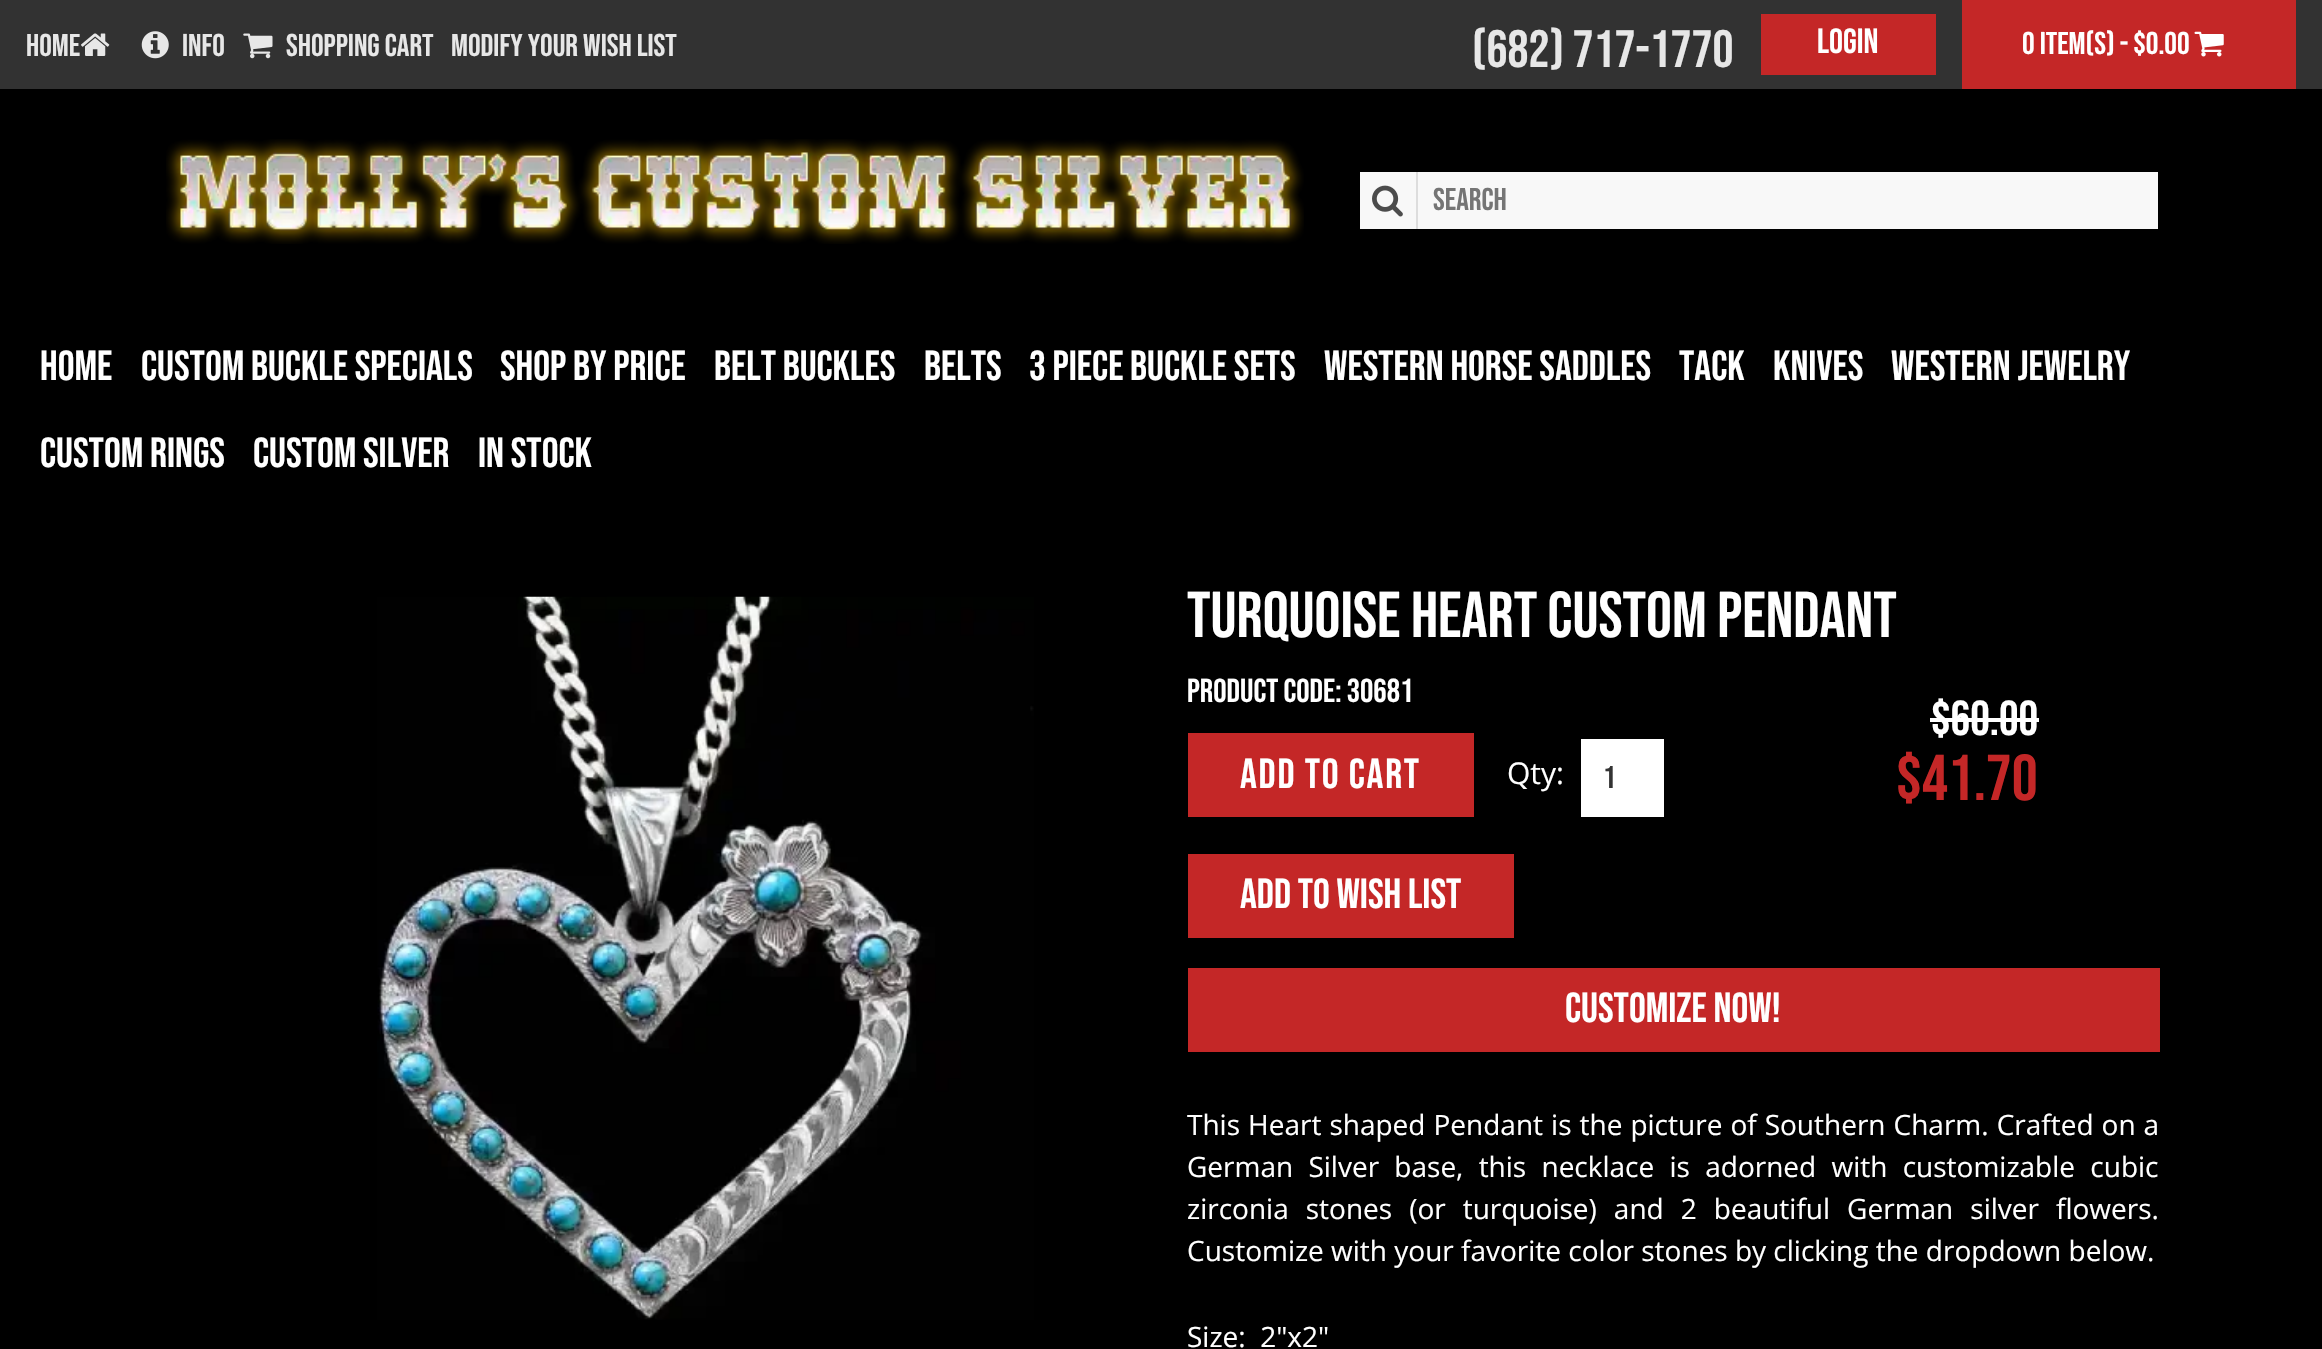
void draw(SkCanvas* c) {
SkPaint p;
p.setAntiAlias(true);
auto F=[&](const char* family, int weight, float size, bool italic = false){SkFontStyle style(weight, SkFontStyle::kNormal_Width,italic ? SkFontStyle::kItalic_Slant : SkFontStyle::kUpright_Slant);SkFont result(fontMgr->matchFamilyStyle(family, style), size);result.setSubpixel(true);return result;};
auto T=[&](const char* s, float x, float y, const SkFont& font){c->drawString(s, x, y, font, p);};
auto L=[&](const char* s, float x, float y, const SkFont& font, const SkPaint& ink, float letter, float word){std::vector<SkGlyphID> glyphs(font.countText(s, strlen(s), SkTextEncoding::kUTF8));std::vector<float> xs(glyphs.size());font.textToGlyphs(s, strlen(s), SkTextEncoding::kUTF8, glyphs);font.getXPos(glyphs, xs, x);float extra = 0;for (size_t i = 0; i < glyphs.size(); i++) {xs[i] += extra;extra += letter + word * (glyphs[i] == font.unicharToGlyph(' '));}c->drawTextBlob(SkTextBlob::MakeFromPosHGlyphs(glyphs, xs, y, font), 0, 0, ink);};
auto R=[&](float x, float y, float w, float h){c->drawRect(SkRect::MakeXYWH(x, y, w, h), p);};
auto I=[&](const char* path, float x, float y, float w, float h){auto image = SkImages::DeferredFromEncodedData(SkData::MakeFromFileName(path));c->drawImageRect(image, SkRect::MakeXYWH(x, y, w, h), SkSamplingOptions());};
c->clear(0xff000000);
p.setColor(0xff323232);
R(0,0,2322,89);
auto f1 = F("Bebas Neue",400,31.5);
p.setColor(0xffe7e7e7);
T("HOME",26,56,f1);
I("1.png",81,33,29,23);
I("2.png",141,31,28,28);
T("INFO",182,56,f1);
I("3.png",243,33,30,26);
T("SHOPPING CART",286,56,f1);
T("MODIFY YOUR WISH LIST",451,56,f1);
auto f2 = F("Bebas Neue",400,52.5);
T("(682) 717-1770",1472,67,f2);
p.setColor(0xffc42727);
R(1761,14,175,61);
auto f3 = F("Bebas Neue",400,35);
p.setColor(0xffffffff);
T("Login",1817,53,f3);
p.setColor(0xffc42727);
R(1962,0,334,89);
p.setColor(0xffffffff);
T("0 item(s) - $0.00",2022,54,f1);
I("4.png",2194,31,30,26);
I("5.png",166,139,1138,105);
p.setColor(0xfff8f8f8);
R(1360,172,798,57);
p.setColor(0xffdddddd);
R(1416,172,2,57);
I("6.png",1372,185,31,32);
p.setColor(0xff757575);
T("Search",1433,210,f1);
auto f4 = F("Bebas Neue",400,42);
p.setColor(0xffffffff);
T("Home",40,380,f4);
T("Custom Buckle Specials",141,380,f4);
T("Shop By Price",500,380,f4);
T("Belt Buckles",714,380,f4);
T("Belts",924,380,f4);
T("3 Piece Buckle Sets",1029,380,f4);
T("Western Horse Saddles",1324,380,f4);
T("Tack",1679,380,f4);
T("Knives",1773,380,f4);
T("Western Jewelry",1891,380,f4);
T("Custom Rings",40,467,f4);
T("Custom Silver",253,467,f4);
T("IN STOCK",478,467,f4);
I("7.png",377,596,657,724);
auto f5 = F("Bebas Neue",400,64.75);
T("Turquoise Heart Custom Pendant",1187,637,f5);
auto f6 = F("Bebas Neue",400,33.25);
T("Product Code: 30681",1187,702,f6);
p.setColor(0xffc42727);
R(1188,733,286,84);
p.setColor(0xffffffff);
L("Add to Cart",1240,788,f4,p,1.75,0);
auto f7 = F("Open Sans",400,30);
T("Qty:",1507,784,f7);
R(1581,739,83,78);
p.setColor(0xff333333);
T("1",1603,788,f1);
p.setColor(0xffc42727);
R(1188,854,326,84);
p.setColor(0xffffffff);
T("Add to Wish List",1240,908,f4);
auto f8 = F("Bebas Neue",400,49);
T("$60.00",1931,735,f8);
R(1930,718,109,4);
p.setColor(0xffc42727);
T("$41.70",1896,800,f5);
R(1188,968,972,84);
p.setColor(0xffffffff);
T("Customize Now!",1565,1022,f4);
auto f9 = F("Open Sans",400,28);
L("This Heart shaped Pendant is the picture of Southern Charm. Crafted on a",1187,1135,f9,p,0,.75);
L("German Silver base, this necklace is adorned with customizable cubic",1187,1177,f9,p,0,8);
L("zirconia stones (or turquoise) and 2 beautiful German silver flowers.",1187,1219,f9,p,0,9.75);
T("Customize with your favorite color stones by clicking the dropdown below.",1187,1261,f9);
T("Size:  2\"x2\"",1187,1347,f9);
}
